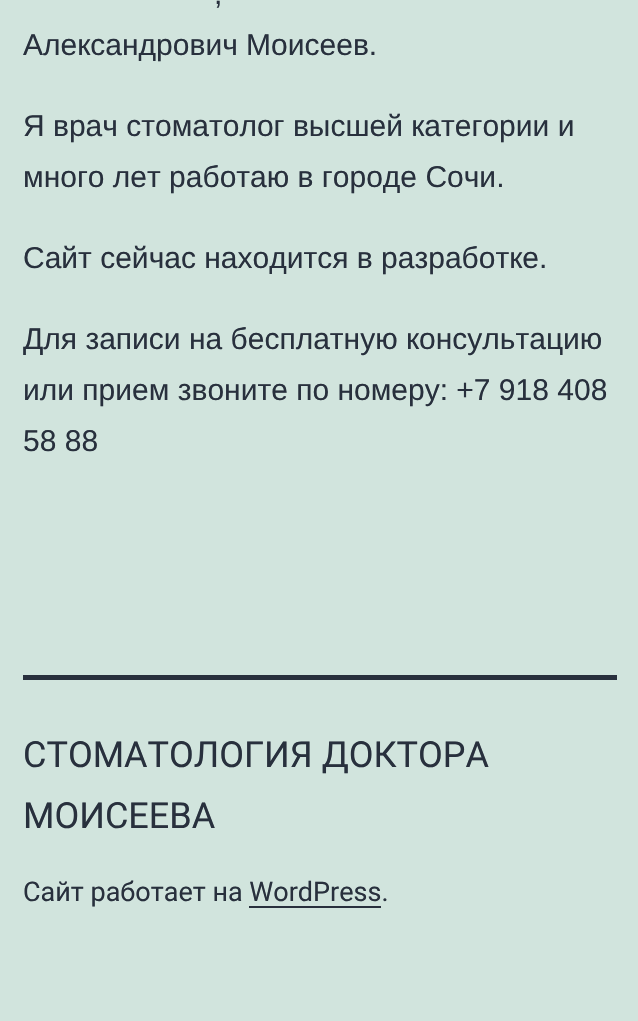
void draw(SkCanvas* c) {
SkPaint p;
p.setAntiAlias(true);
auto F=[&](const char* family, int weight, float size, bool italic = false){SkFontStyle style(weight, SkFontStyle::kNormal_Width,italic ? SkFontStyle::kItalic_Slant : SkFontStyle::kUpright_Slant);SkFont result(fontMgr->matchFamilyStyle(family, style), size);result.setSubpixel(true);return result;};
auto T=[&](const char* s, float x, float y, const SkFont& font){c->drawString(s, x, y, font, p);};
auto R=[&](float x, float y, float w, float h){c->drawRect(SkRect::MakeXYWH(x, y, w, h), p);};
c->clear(0xffd1e4dd);
auto f1 = F("Liberation Sans",400,30);
p.setColor(0xff28303d);
T(",",214,4,f1);
T("Александрович Моисеев.",23,55,f1);
T("Я врач стоматолог высшей категории и",23,136,f1);
T("много лет работаю в городе Сочи.",23,187,f1);
T("Сайт сейчас находится в разработке.",23,268,f1);
T("Для записи на бесплатную консультацию",23,349,f1);
T("или прием звоните по номеру: +7 918 408",23,400,f1);
T("58 88",23,451,f1);
R(23,675,594,5);
auto f2 = F("Roboto",400,36);
T("СТОМАТОЛОГИЯ ДОКТОРА",23,767,f2);
T("МОИСЕЕВА",23,828,f2);
auto f3 = F("Roboto",400,27);
T("Сайт работает на WordPress.",23,901,f3);
R(249,906,132,2);
}
